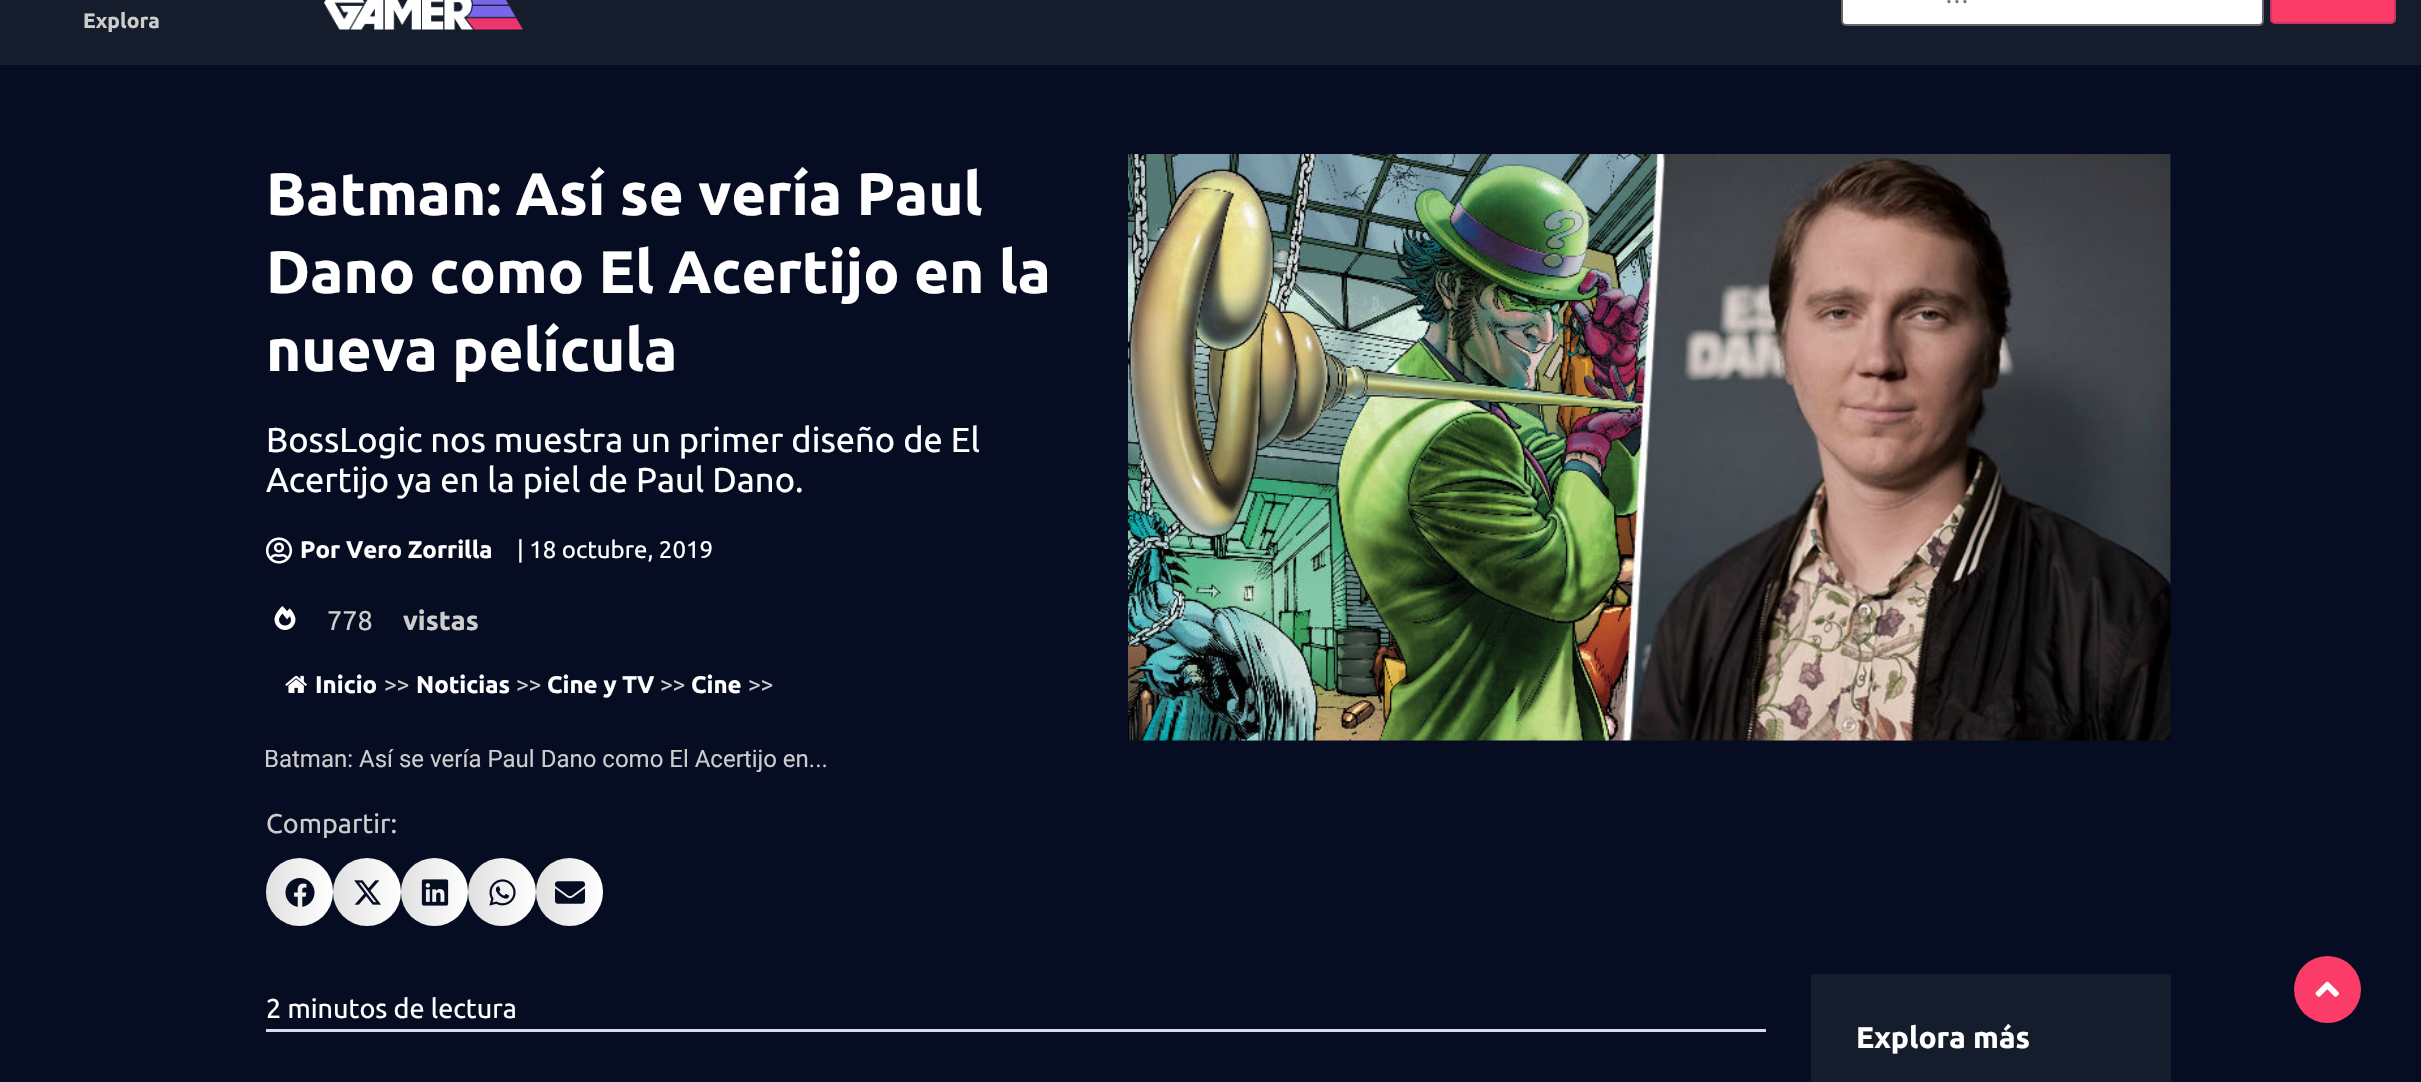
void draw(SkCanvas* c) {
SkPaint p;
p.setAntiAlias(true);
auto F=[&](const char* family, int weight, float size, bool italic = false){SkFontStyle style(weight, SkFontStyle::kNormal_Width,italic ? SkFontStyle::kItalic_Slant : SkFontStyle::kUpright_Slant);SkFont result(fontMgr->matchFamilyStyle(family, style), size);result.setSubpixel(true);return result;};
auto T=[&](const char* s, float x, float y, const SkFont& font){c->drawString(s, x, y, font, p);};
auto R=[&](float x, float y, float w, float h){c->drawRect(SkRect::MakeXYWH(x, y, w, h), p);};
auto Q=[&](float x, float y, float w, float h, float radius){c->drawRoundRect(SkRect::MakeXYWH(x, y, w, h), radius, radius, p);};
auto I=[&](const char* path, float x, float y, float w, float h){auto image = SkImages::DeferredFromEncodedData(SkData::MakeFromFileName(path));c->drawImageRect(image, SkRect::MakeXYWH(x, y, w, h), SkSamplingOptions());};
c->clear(0xff060c22);
p.setColor(0xff151c2b);
R(0,0,2421,65);
I("1.png",324,0,199,30);
p.setColor(0xffffffff);
c->drawRoundRect(SkRect::MakeXYWH(1842,-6,421,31),4,4,p);
p.setStroke(true);
p.setStrokeWidth(2);
p.setColor(0xff666666);
c->drawRoundRect(SkRect::MakeXYWH(1842,-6,421,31),4,4,p);
auto f1 = F("Ubuntu",400,24);
p.setStroke(false);
p.setColor(0xff757575);
T("…",1945,3,f1);
p.setColor(0xfffc3c68);
c->drawRoundRect(SkRect::MakeXYWH(2271,-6,124,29),4,4,p);
p.setStroke(true);
p.setColor(0xffcc3366);
c->drawRoundRect(SkRect::MakeXYWH(2271,-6,124,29),4,4,p);
auto f2 = F("Ubuntu",700,21);
p.setStroke(false);
p.setColor(0xffcdcdcd);
T("Explora",83,28,f2);
auto f3 = F("Ubuntu",700,60);
p.setColor(0xffffffff);
T("Batman: Así se vería Paul",266,215,f3);
T("Dano como El Acertijo en la",266,293,f3);
T("nueva película",266,371,f3);
auto f4 = F("Ubuntu",400,34.5);
T("BossLogic nos muestra un primer diseño de El",266,452,f4);
T("Acertijo ya en la piel de Paul Dano.",266,492,f4);
I("2.png",266,537,27,27);
auto f5 = F("Ubuntu",700,24);
T("Por Vero Zorrilla",300,558,f5);
T("| 18 octubre, 2019",517,558,f1);
I("3.png",274,606,22,24);
auto f6 = F("Ubuntu",400,27);
p.setColor(0xffcdcdcd);
T("778",327,630,f6);
auto f7 = F("Ubuntu",700,27);
T("vistas",403,630,f7);
I("4.png",285,675,22,18);
p.setColor(0xffffffff);
T("Inicio",315,693,f5);
auto f8 = F("Roboto",400,24);
p.setColor(0xffcdcdcd);
T(">>",384,693,f8);
p.setColor(0xffffffff);
T("Noticias",416,693,f5);
p.setColor(0xffcdcdcd);
T(">>",516,693,f8);
p.setColor(0xffffffff);
T("Cine y TV",547,693,f5);
p.setColor(0xffcdcdcd);
T(">>",660,693,f8);
p.setColor(0xffffffff);
T("Cine",691,693,f5);
p.setColor(0xffcdcdcd);
T(">>",748,693,f8);
T("Batman: Así se vería Paul Dano como El Acertijo en...",264,767,f8);
T("Compartir:",266,833,f6);
p.setColor(0xffffffff);
Q(266,858,67,68,33.5);
{
const SkColor colors[] = {0x1f000000,0x00000000};
const float stops[] = {0,1};
const SkPoint ends[] = {{266,892}, {333,892}};
p.setShader(SkGradientShader::MakeLinear(ends, colors, stops, 2, SkTileMode::kClamp));
p.setAlpha(255);
}
Q(266,858,67,68,33.5);
I("5.png",285,878,30,29);
p.setShader(nullptr);
p.setColor(0xffffffff);
c->drawCircle(367,892,34,p);
{
const SkColor colors[] = {0x1f000000,0x00000000};
const float stops[] = {0,1};
const SkPoint ends[] = {{333,892}, {401,892}};
p.setShader(SkGradientShader::MakeLinear(ends, colors, stops, 2, SkTileMode::kClamp));
p.setAlpha(255);
}
c->drawCircle(367,892,34,p);
I("6.png",354,880,27,25);
p.setShader(nullptr);
p.setColor(0xffffffff);
Q(401,858,67,68,33.5);
{
const SkColor colors[] = {0x1f000000,0x00000000};
const float stops[] = {0,1};
const SkPoint ends[] = {{401,892}, {468,892}};
p.setShader(SkGradientShader::MakeLinear(ends, colors, stops, 2, SkTileMode::kClamp));
p.setAlpha(255);
}
Q(401,858,67,68,33.5);
I("7.png",421,879,28,27);
p.setShader(nullptr);
p.setColor(0xffffffff);
c->drawCircle(502,892,34,p);
{
const SkColor colors[] = {0x1f000000,0x00000000};
const float stops[] = {0,1};
const SkPoint ends[] = {{468,892}, {536,892}};
p.setShader(SkGradientShader::MakeLinear(ends, colors, stops, 2, SkTileMode::kClamp));
p.setAlpha(255);
}
c->drawCircle(502,892,34,p);
I("8.png",489,879,27,27);
p.setShader(nullptr);
p.setColor(0xffffffff);
Q(536,858,67,68,33.5);
{
const SkColor colors[] = {0x1f000000,0x00000000};
const float stops[] = {0,1};
const SkPoint ends[] = {{536,892}, {603,892}};
p.setShader(SkGradientShader::MakeLinear(ends, colors, stops, 2, SkTileMode::kClamp));
p.setAlpha(255);
}
Q(536,858,67,68,33.5);
I("9.png",555,881,30,23);
I("10.png",1128,154,1043,587);
p.setShader(nullptr);
p.setColor(0xffffffff);
T("2 minutos de lectura",266,1018,f6);
p.setColor(0xffdfdaea);
R(266,1029,1500,3);
p.setColor(0xff151c2b);
R(1811,974,360,108);
auto f9 = F("Ubuntu",700,30);
p.setColor(0xffffffff);
T("Explora más",1856,1048,f9);
p.setColor(0xfffc3c68);
c->drawCircle(2327.5,989.5,33.5,p);
I("11.png",2315,981,24,16);
}
